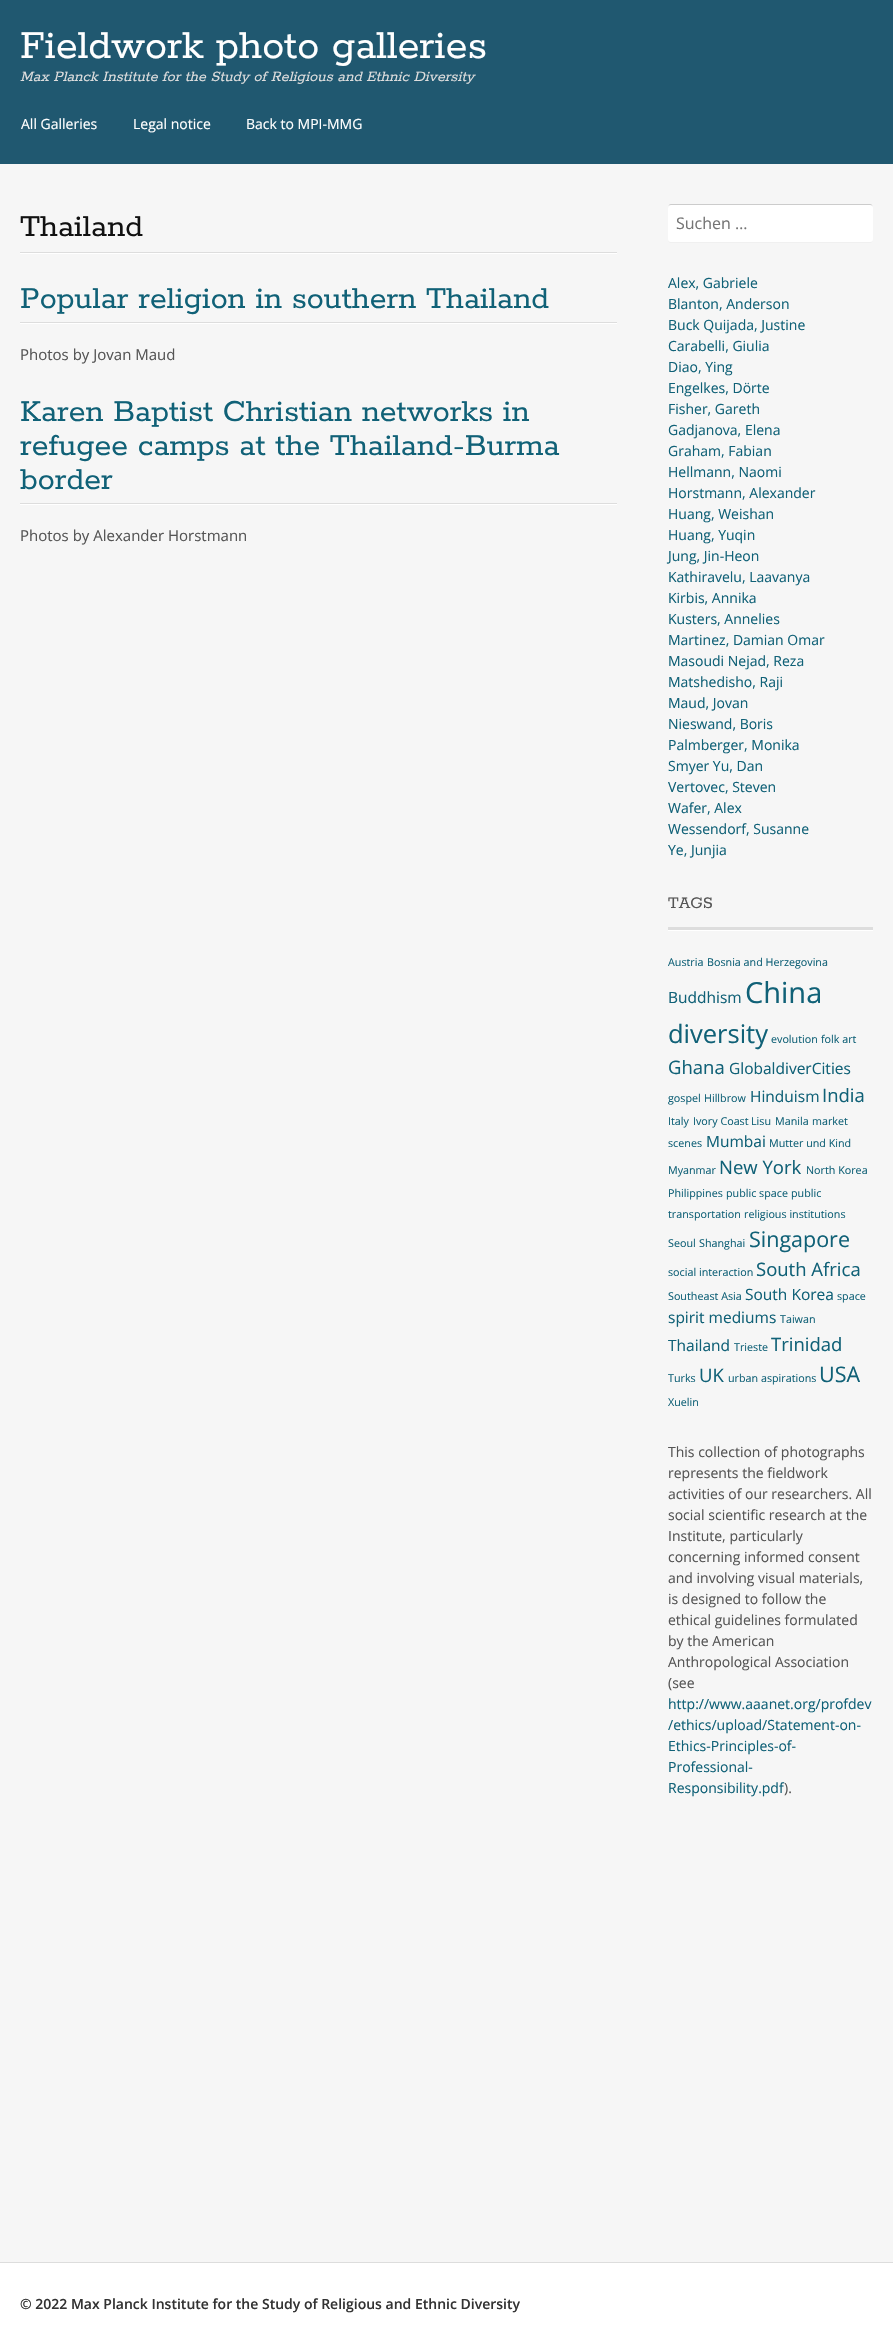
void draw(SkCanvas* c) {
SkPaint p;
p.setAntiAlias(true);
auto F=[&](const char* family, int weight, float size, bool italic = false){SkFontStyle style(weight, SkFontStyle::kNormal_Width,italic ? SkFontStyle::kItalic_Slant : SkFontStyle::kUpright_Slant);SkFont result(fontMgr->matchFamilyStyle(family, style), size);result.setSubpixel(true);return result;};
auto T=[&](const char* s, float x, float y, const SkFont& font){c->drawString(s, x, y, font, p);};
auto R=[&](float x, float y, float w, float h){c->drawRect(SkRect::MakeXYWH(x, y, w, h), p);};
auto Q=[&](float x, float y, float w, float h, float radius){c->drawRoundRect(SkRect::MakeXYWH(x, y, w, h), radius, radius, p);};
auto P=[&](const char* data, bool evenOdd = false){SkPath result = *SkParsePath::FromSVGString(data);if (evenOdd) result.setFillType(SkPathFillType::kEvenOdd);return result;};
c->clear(0xfff6f6f6);
p.setColor(0xff205870);
R(0,0,893,164);
auto f1 = F("Rokkitt",400,44);
p.setColor(0xffffffff);
T("Fieldwork photo galleries",20,58,f1);
auto f2 = F("Rokkitt",400,16,true);
p.setColor(0xffdddddd);
T("Max Planck Institute for the Study of Religious and Ethnic Diversity",20,81,f2);
auto f3 = F("Open Sans",400,14);
p.setColor(0xffffffff);
T("All Galleries",21,129,f3);
T("Legal notice",133,129,f3);
T("Back to MPI-MMG",246,129,f3);
auto f4 = F("Rokkitt",400,34);
p.setColor(0xff111111);
T("Thailand",20,236,f4);
p.setColor(0xffffffff);
R(20,253,597,1);
p.setColor(0xffdddddd);
R(20,252,597,1);
p.setColor(0xffffffff);
R(20,323,597,1);
p.setColor(0xffdddddd);
R(20,322,597,1);
p.setColor(0xff106177);
T("Popular religion in southern Thailand",20,308,f4);
auto f5 = F("Open Sans",400,15);
p.setColor(0xff555555);
T("Photos by Jovan Maud",20,360,f5);
p.setColor(0xffffffff);
R(20,504,597,1);
p.setColor(0xffdddddd);
R(20,503,597,1);
p.setColor(0xff106177);
T("Karen Baptist Christian networks in",20,421,f4);
T("refugee camps at the Thailand-Burma",20,455,f4);
T("border",20,489,f4);
p.setColor(0xff555555);
T("Photos by Alexander Horstmann",20,541,f5);
p.setColor(0xfff0f0f0);
c->drawPath(P("M668 239c0 2 1 4 3 4h199c2 0 3-2 3-4c0 2-1 3-3 3h-199l-2-1z"),p);
p.setColor(0xffffffff);
Q(668,204,205,38,3);
p.setColor(0xffcccccc);
c->drawPath(P("M671 205h199c2 0 3 1 3 3c0-2-1-4-3-4h-199c-2 0-3 2-3 4c0-2 1-3 3-3z"),p);
auto f6 = F("Open Sans",400,16);
p.setColor(0xff757575);
T("Suchen …",676,229,f6);
p.setColor(0xff106177);
T("Alex, Gabriele",668,288,f3);
T("Blanton, Anderson",668,309,f3);
T("Buck Quijada, Justine",668,330,f3);
T("Carabelli, Giulia",668,351,f3);
T("Diao, Ying",668,372,f3);
T("Engelkes, Dörte",668,393,f3);
T("Fisher, Gareth",668,414,f3);
T("Gadjanova, Elena",668,435,f3);
T("Graham, Fabian",668,456,f3);
T("Hellmann, Naomi",668,477,f3);
T("Horstmann, Alexander",668,498,f3);
T("Huang, Weishan",668,519,f3);
T("Huang, Yuqin",668,540,f3);
T("Jung, Jin-Heon",668,561,f3);
T("Kathiravelu, Laavanya",668,582,f3);
T("Kirbis, Annika",668,603,f3);
T("Kusters, Annelies",668,624,f3);
T("Martinez, Damian Omar",668,645,f3);
T("Masoudi Nejad, Reza",668,666,f3);
T("Matshedisho, Raji",668,687,f3);
T("Maud, Jovan",668,708,f3);
T("Nieswand, Boris",668,729,f3);
T("Palmberger, Monika",668,750,f3);
T("Smyer Yu, Dan",668,771,f3);
T("Vertovec, Steven",668,792,f3);
T("Wafer, Alex",668,813,f3);
T("Wessendorf, Susanne",668,834,f3);
T("Ye, Junjia",668,855,f3);
p.setColor(0xffffffff);
R(668,930,205,1);
p.setColor(0xffdddddd);
R(668,927,205,3);
auto f7 = F("Rokkitt",400,18);
p.setColor(0xff555555);
T("TAGS",668,908,f7);
auto f8 = F("Open Sans",400,10.75);
p.setColor(0xff106177);
T("Austria",668,966,f8);
T("Bosnia and Herzegovina",707,966,f8);
auto f9 = F("Open Sans",400,15.5);
T("Buddhism",668,1003,f9);
auto f10 = F("Open Sans",400,29);
T("China",745,1003,f10);
auto f11 = F("Open Sans",400,25.5);
T("diversity",668,1043,f11);
T("evolution",771,1043,f8);
T("folk art",821,1043,f8);
auto f12 = F("Open Sans",400,18.5);
T("Ghana",668,1074,f12);
T("GlobaldiverCities",729,1074,f9);
T("gospel",668,1102,f8);
T("Hillbrow",704,1102,f8);
T("Hinduism",750,1102,f9);
T("India",822,1102,f12);
T("Italy",668,1125,f8);
T("Ivory Coast",693,1125,f8);
T("Lisu",751,1125,f8);
T("Manila",775,1125,f8);
T("market",812,1125,f8);
T("scenes",668,1147,f8);
T("Mumbai",706,1147,f9);
T("Mutter und Kind",769,1147,f8);
T("Myanmar",668,1174,f8);
T("New York",719,1174,f12);
T("North Korea",806,1174,f8);
T("Philippines",668,1197,f8);
T("public space",726,1197,f8);
T("public",791,1197,f8);
T("transportation",668,1218,f8);
T("religious institutions",744,1218,f8);
T("Seoul",668,1247,f8);
T("Shanghai",699,1247,f8);
auto f13 = F("Open Sans",400,21.5);
T("Singapore",749,1247,f13);
T("social interaction",668,1276,f8);
T("South Africa",756,1276,f12);
T("Southeast Asia",668,1300,f8);
T("South Korea",745,1300,f9);
T("space",837,1300,f8);
T("spirit mediums",668,1323,f9);
T("Taiwan",780,1323,f8);
T("Thailand",668,1351,f9);
T("Trieste",734,1351,f8);
T("Trinidad",771,1351,f12);
T("Turks",668,1382,f8);
T("UK",699,1382,f12);
T("urban aspirations",728,1382,f8);
T("USA",819,1382,f13);
T("Xuelin",668,1406,f8);
p.setColor(0xff555555);
T("This collection of photographs",668,1457,f3);
T("represents the fieldwork",668,1478,f3);
T("activities of our researchers. All",668,1499,f3);
T("social scientific research at the",668,1520,f3);
T("Institute, particularly",668,1541,f3);
T("concerning informed consent",668,1562,f3);
T("and involving visual materials,",668,1583,f3);
T("is designed to follow the",668,1604,f3);
T("ethical guidelines formulated",668,1625,f3);
T("by the American",668,1646,f3);
T("Anthropological Association",668,1667,f3);
T("(see",668,1688,f3);
p.setColor(0xff106177);
T("http://www.aaanet.org/profdev",668,1709,f3);
T("/ethics/upload/Statement-on-",668,1730,f3);
T("Ethics-Principles-of-",668,1751,f3);
T("Professional-",668,1772,f3);
T("Responsibility.pdf",668,1793,f3);
p.setColor(0xff555555);
T(").",784,1793,f3);
p.setColor(0xffffffff);
R(0,2263,893,81);
p.setColor(0xffdddddd);
R(0,2262,893,1);
auto f14 = F("Open Sans",600,14);
p.setColor(0xff333333);
T("© 2022 Max Planck Institute for the Study of Religious and Ethnic Diversity",20,2309,f14);
}
